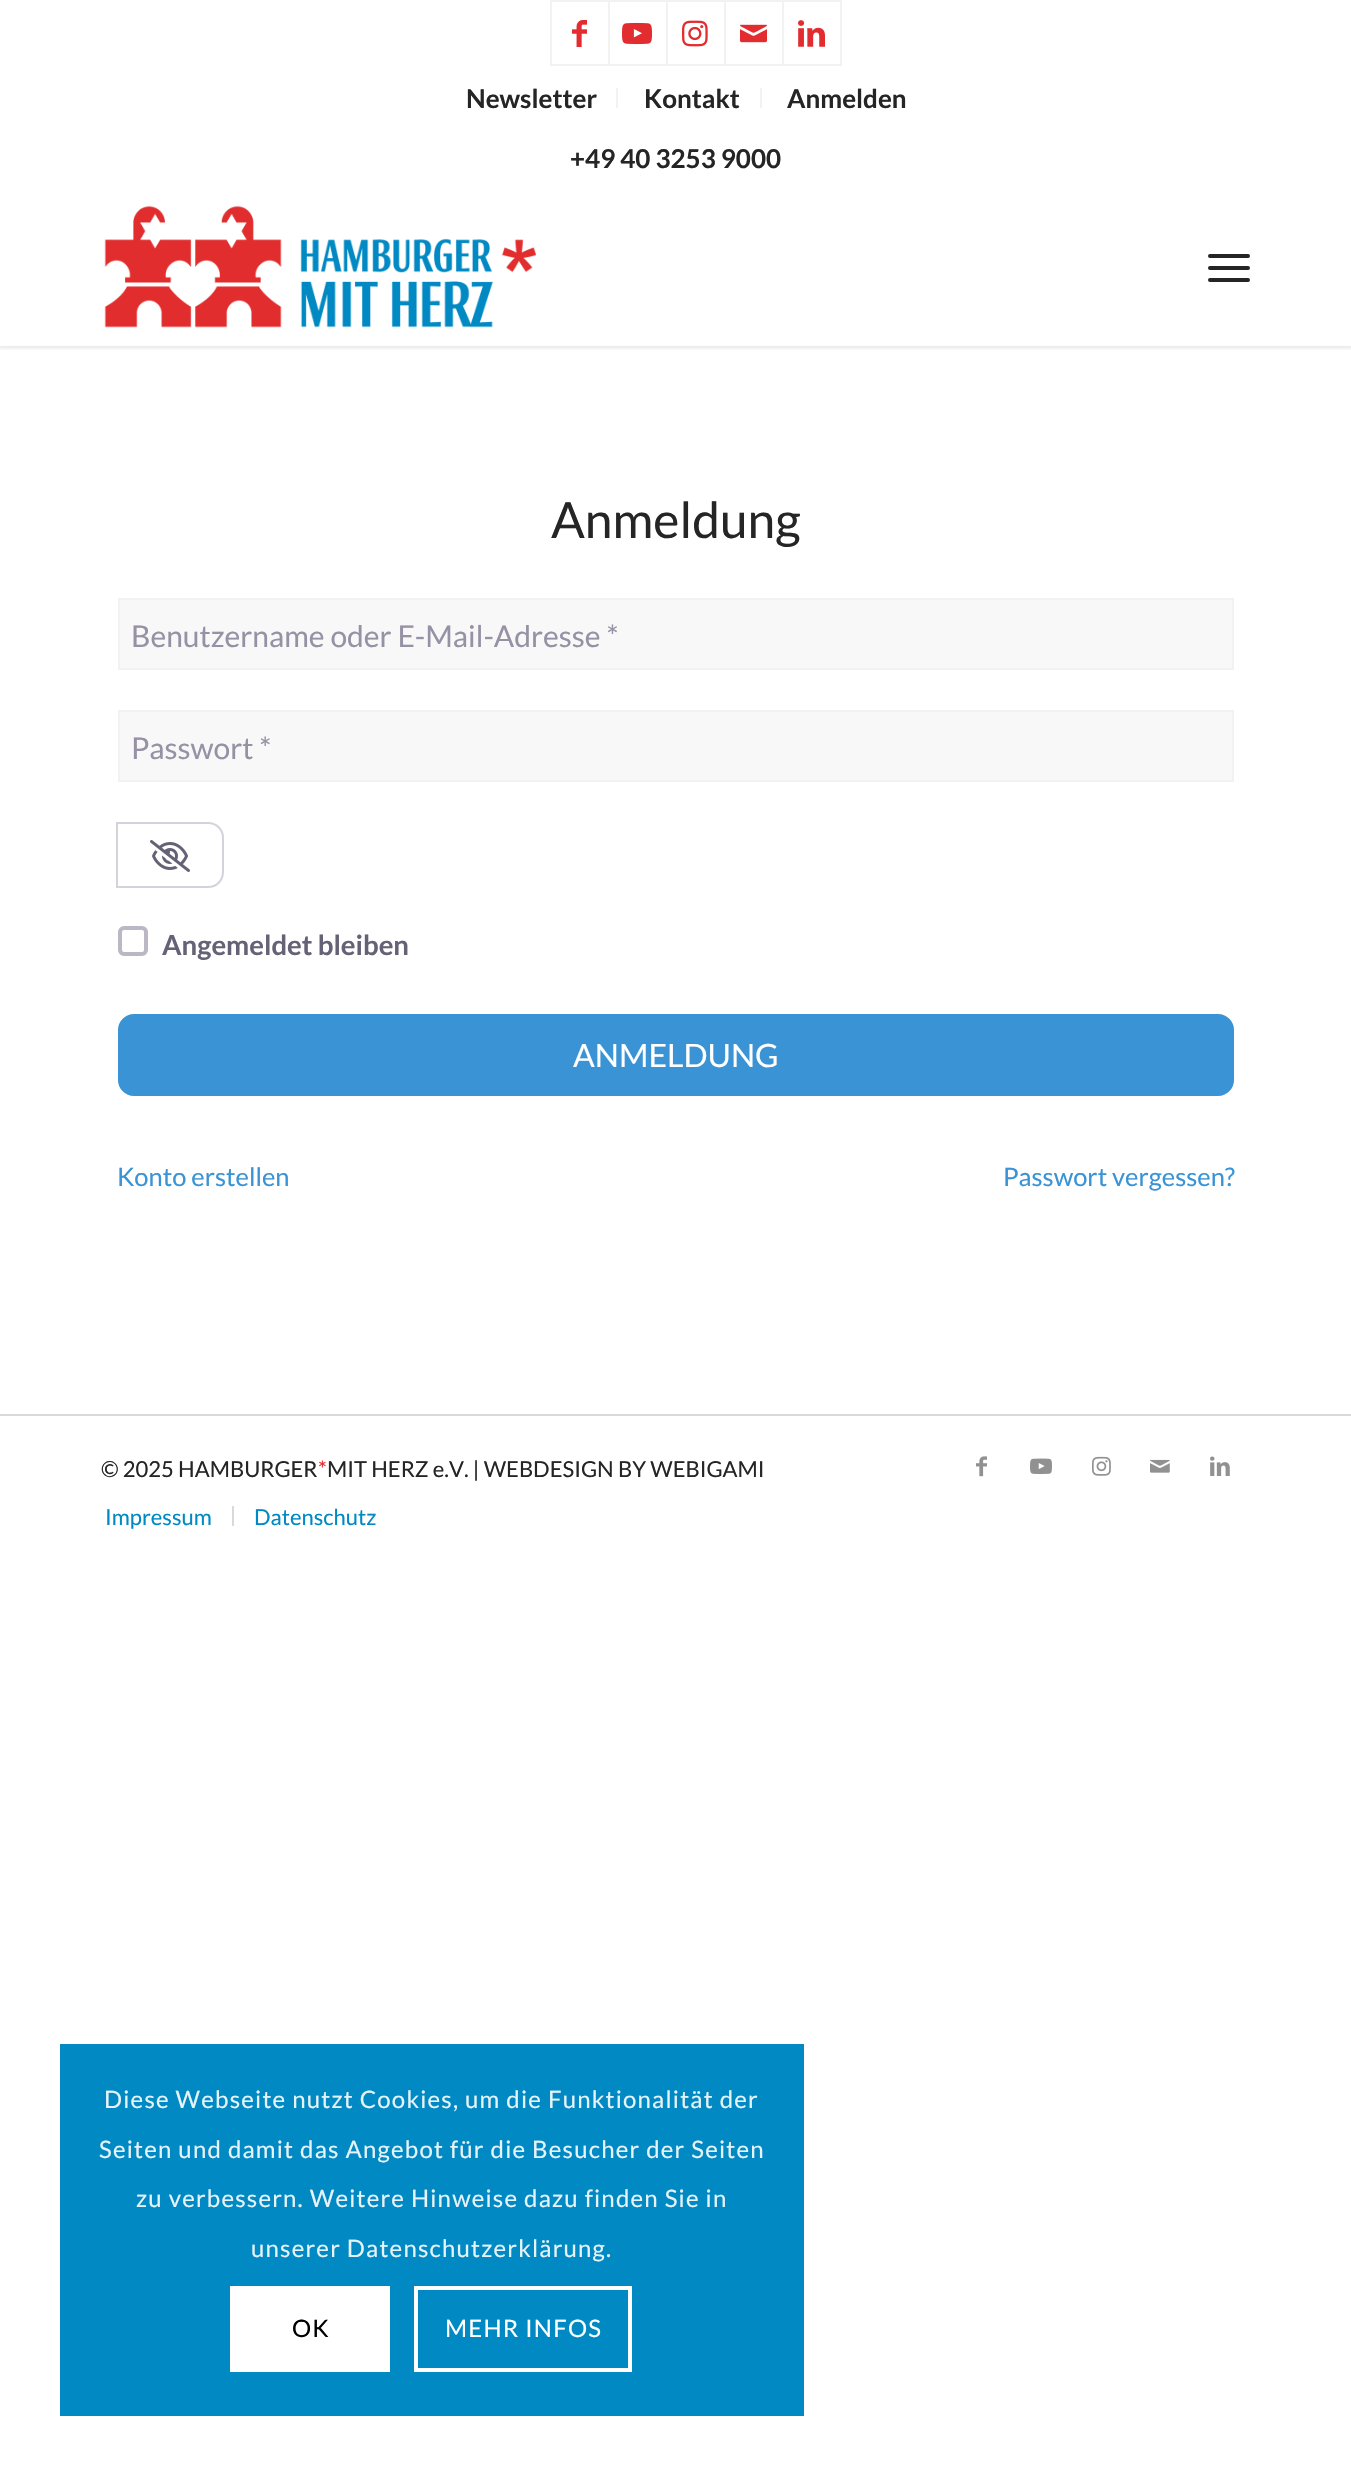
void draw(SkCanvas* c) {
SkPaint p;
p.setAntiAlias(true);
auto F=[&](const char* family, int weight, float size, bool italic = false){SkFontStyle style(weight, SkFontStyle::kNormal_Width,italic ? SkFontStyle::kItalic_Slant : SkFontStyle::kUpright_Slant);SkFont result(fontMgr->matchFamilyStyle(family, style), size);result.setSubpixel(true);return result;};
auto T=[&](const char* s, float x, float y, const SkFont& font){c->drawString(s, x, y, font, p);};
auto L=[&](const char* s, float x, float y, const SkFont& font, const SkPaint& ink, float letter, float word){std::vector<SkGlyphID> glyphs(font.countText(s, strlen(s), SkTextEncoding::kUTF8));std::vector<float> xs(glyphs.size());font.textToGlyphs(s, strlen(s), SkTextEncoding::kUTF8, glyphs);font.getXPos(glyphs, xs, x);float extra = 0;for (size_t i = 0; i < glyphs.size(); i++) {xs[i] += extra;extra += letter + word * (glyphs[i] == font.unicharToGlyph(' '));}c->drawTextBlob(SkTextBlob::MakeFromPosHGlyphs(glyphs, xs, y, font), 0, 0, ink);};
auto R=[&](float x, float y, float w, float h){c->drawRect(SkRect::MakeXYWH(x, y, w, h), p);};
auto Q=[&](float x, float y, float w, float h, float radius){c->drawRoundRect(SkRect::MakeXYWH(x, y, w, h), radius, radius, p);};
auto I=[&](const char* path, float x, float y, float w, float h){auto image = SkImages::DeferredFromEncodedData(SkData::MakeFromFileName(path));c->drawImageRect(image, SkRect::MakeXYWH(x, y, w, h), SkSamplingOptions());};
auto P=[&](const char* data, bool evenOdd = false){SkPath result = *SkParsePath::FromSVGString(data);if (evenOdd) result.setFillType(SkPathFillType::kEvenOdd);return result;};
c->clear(0xffffffff);
c->save();
c->clipRect(SkRect::MakeXYWH(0,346,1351,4));
p.setColor(0x1a000000);
p.setMaskFilter(SkMaskFilter::MakeBlur(kNormal_SkBlurStyle, 2));
c->drawRect(SkRect::MakeXYWH(-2,-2,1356,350),p);
p.setMaskFilter(nullptr);
c->restore();
p.setStroke(true);
p.setStrokeWidth(2);
p.setColor(0xfff2f2f2);
c->drawRect(SkRect::MakeXYWH(551,1,58,64),p);
I("1.png",572,20,15,27);
c->drawRect(SkRect::MakeXYWH(609,1,58,64),p);
I("2.png",622,22,30,23);
c->drawRect(SkRect::MakeXYWH(667,1,58,64),p);
I("3.png",682,20,26,27);
c->drawRect(SkRect::MakeXYWH(725,1,58,64),p);
I("4.png",740,24,27,19);
c->drawRect(SkRect::MakeXYWH(783,1,58,64),p);
I("5.png",798,20,27,27);
p.setStroke(false);
R(616,88,2,20);
auto f1 = F("Lato",700,26);
p.setColor(0xff252525);
T("Newsletter",466,108,f1);
p.setColor(0xfff2f2f2);
R(760,88,2,20);
p.setColor(0xff252525);
T("Kontakt",644,108,f1);
T("Anmelden",787,108,f1);
T("+49 40 3253 9000",570,168,f1);
I("6.png",104,206,432,122);
Q(1208,266,42,4,2);
Q(1208,254,42,4,2);
Q(1208,278,42,4,2);
auto f2 = F("Lato",400,49.75);
T("Anmeldung",551,538,f2);
p.setColor(0xfff8f8f8);
c->drawRect(SkRect::MakeXYWH(119,599,1114,70),p);
p.setStroke(true);
p.setColor(0xfff2f2f2);
c->drawRect(SkRect::MakeXYWH(119,599,1114,70),p);
auto f3 = F("Lato",400,30);
p.setStroke(false);
p.setColor(0xff9691a4);
T("Benutzername oder E-Mail-Adresse *",131,647,f3);
p.setColor(0xfff8f8f8);
c->drawRect(SkRect::MakeXYWH(119,711,1114,70),p);
p.setStroke(true);
p.setColor(0xfff2f2f2);
c->drawRect(SkRect::MakeXYWH(119,711,1114,70),p);
p.setStroke(false);
p.setColor(0xff9691a4);
T("Passwort *",131,759,f3);
p.setStroke(true);
p.setColor(0xffd5d2dc);
c->drawPath(P("M117 823h91c8.5 0 15 6.5 15 15v34c0 8.5-6.5 15-15 15h-91z"),p);
I("7.png",150,840,40,32);
p.setStrokeWidth(4);
p.setColor(0xffbbb7c5);
c->drawRoundRect(SkRect::MakeXYWH(120,928,26,26),4,4,p);
auto f4 = F("Lato",700,27.5);
p.setStroke(false);
p.setColor(0xff666276);
T("Angemeldet bleiben",162,955,f4);
p.setColor(0xff3993d5);
c->drawRoundRect(SkRect::MakeXYWH(119,1015,1114,80),15,15,p);
p.setStroke(true);
p.setStrokeWidth(2);
c->drawRoundRect(SkRect::MakeXYWH(119,1015,1114,80),15,15,p);
auto f5 = F("Lato",400,32);
p.setStroke(false);
p.setColor(0xffffffff);
T("ANMELDUNG",573,1067,f5);
auto f6 = F("Lato",400,25.5);
p.setColor(0xff3993d5);
T("Konto erstellen",117,1186,f6);
T("Passwort vergessen?",1003,1186,f6);
p.setColor(0xffd9d9d9);
R(0,1414,1351,2);
auto f7 = F("Lato",400,22);
p.setColor(0xff252525);
T("© 2025 HAMBURGER",101,1477,f7);
p.setColor(0xffe22c2f);
T("*",318,1477,f7);
p.setColor(0xff252525);
T("MIT HERZ e.V. | WEBDESIGN BY WEBIGAMI",327,1477,f7);
I("8.png",976,1456,11,21);
I("9.png",1030,1458,22,16);
I("10.png",1092,1456,19,20);
I("11.png",1150,1459,20,14);
I("12.png",1210,1456,20,20);
p.setColor(0xff0089c3);
T("Impressum",105,1525,f7);
p.setColor(0xffd9d9d9);
R(232,1506,2,20);
p.setColor(0xff0089c3);
T("Datenschutz",254,1525,f7);
R(60,2044,744,372);
auto f8 = F("Lato",400,24);
p.setColor(0xffe6f3f9);
L("Diese Webseite nutzt Cookies, um die Funktionalität der",104,2108,f8,p,1.2,0);
L("Seiten und damit das Angebot für die Besucher der Seiten",99,2158,f8,p,1.2,0);
L("zu verbessern. Weitere Hinweise dazu finden Sie in",136,2207,f8,p,1.2,0);
L("unserer Datenschutzerklärung.",251,2257,f8,p,1.2,0);
p.setColor(0xffffffff);
R(230,2286,160,86);
p.setColor(0xff000000);
L("OK",292,2337,f8,p,1.2,0);
p.setStroke(true);
p.setStrokeWidth(4);
p.setColor(0xffffffff);
c->drawRect(SkRect::MakeXYWH(416,2288,214,82),p);
p.setStroke(false);
L("MEHR INFOS",445,2337,f8,p,1.2,0);
}
